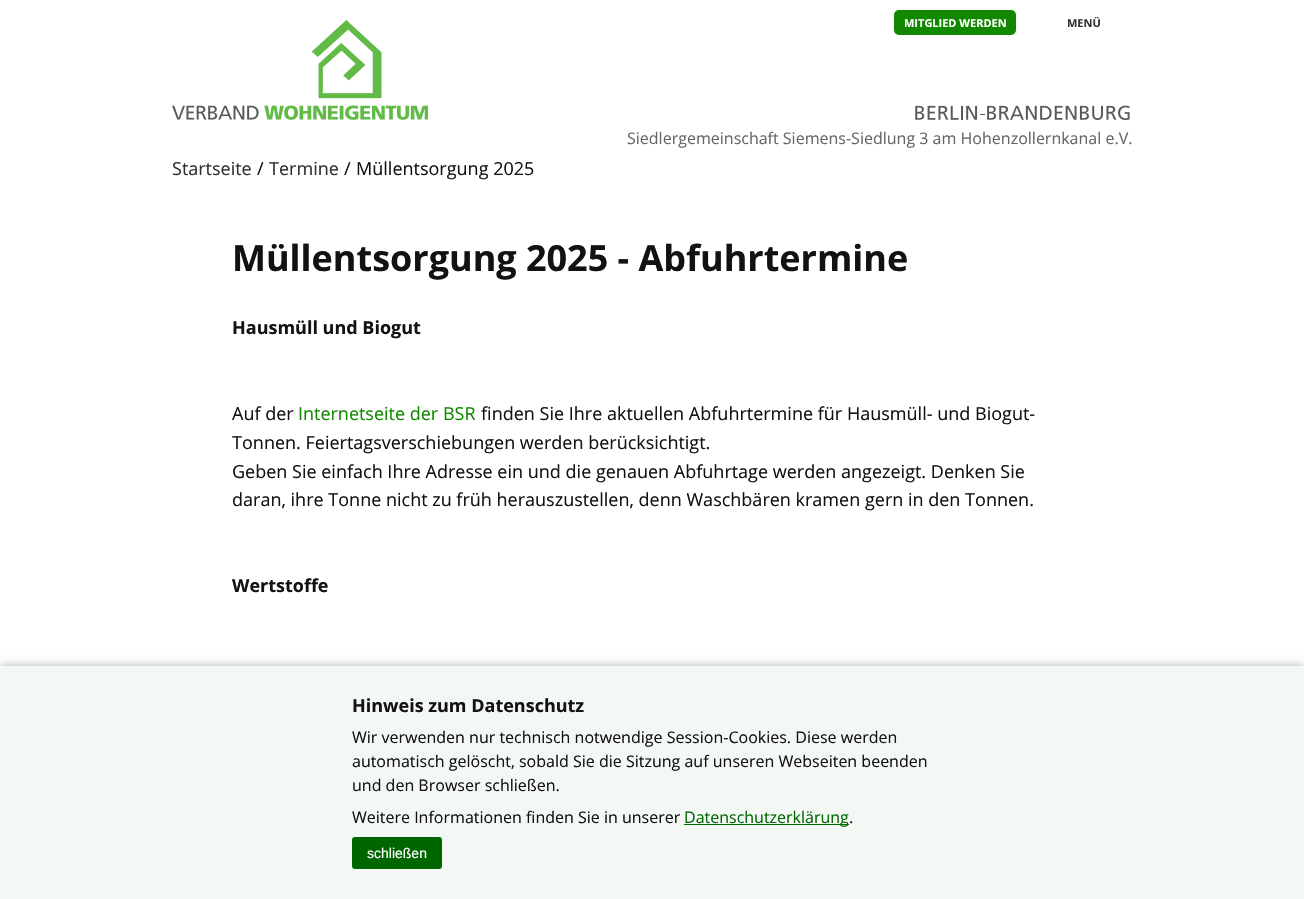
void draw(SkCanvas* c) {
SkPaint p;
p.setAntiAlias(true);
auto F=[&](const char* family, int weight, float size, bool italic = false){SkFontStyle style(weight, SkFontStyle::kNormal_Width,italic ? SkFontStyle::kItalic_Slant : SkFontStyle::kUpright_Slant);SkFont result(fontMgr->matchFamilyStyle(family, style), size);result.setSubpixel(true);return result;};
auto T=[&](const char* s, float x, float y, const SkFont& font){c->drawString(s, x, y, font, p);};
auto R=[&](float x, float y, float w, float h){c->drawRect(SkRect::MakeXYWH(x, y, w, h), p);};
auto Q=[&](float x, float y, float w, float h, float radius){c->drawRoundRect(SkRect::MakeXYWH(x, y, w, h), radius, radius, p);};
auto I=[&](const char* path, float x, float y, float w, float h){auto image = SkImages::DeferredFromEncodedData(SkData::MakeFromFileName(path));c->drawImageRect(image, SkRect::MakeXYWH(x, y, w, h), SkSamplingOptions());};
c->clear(0xffffffff);
I("1.png",172,20,256,100);
p.setColor(0xff118800);
Q(894,10,122,25,5);
auto f1 = F("Open Sans",700,11);
p.setColor(0xffffffff);
T("MITGLIED WERDEN",904,27,f1);
p.setColor(0xff303030);
T("MENÜ",1067,27,f1);
I("2.png",915,105,215,15);
auto f2 = F("Open Sans",400,16);
p.setColor(0xff666666);
T("Siedlergemeinschaft Siemens-Siedlung 3 am Hohenzollernkanal e.V.",627,144,f2);
auto f3 = F("Open Sans",400,18);
p.setColor(0xff303030);
T("Startseite",172,175,f3);
p.setColor(0xff121212);
T("/",257,175,f3);
p.setColor(0xff303030);
T("Termine",269,175,f3);
p.setColor(0xff121212);
T("/",344,175,f3);
T("Müllentsorgung 2025",356,175,f3);
auto f4 = F("Open Sans",700,36);
T("Müllentsorgung 2025 - Abfuhrtermine",232,271,f4);
auto f5 = F("Open Sans",700,18);
T("Hausmüll und Biogut",232,334,f5);
T("Auf der",232,420,f3);
p.setColor(0xff118800);
T("Internetseite der BSR",298,420,f3);
p.setColor(0xff121212);
T("finden Sie Ihre aktuellen Abfuhrtermine für Hausmüll- und Biogut-",481,420,f3);
T("Tonnen. Feiertagsverschiebungen werden berücksichtigt.",232,449,f3);
T("Geben Sie einfach Ihre Adresse ein und die genauen Abfuhrtage werden angezeigt. Denken Sie",232,478,f3);
T("daran, ihre Tonne nicht zu früh herauszustellen, denn Waschbären kramen gern in den Tonnen.",232,506,f3);
T("Wertstoffe",232,592,f5);
p.setColor(0x4d000000);
p.setMaskFilter(SkMaskFilter::MakeBlur(kNormal_SkBlurStyle, 5));
c->drawRect(SkRect::MakeXYWH(0,666,1304,233),p);
p.setMaskFilter(nullptr);
p.setColor(0xfff4f8f4);
R(0,666,1304,233);
p.setColor(0xff121212);
T("Hinweis zum Datenschutz",352,712,f5);
T("Wir verwenden nur technisch notwendige Session-Cookies. Diese werden",352,743,f2);
T("automatisch gelöscht, sobald Sie die Sitzung auf unseren Webseiten beenden",352,767,f2);
T("und den Browser schließen.",352,791,f2);
T("Weitere Informationen finden Sie in unserer",352,823,f2);
p.setColor(0xff006600);
R(684,824,165,1);
T("Datenschutzerklärung",684,823,f2);
p.setColor(0xff121212);
T(".",849,823,f2);
p.setColor(0xff006600);
Q(352,837,90,32,3);
auto f6 = F("Liberation Sans",400,14);
p.setColor(0xffffffff);
T("schließen",367,858,f6);
}
